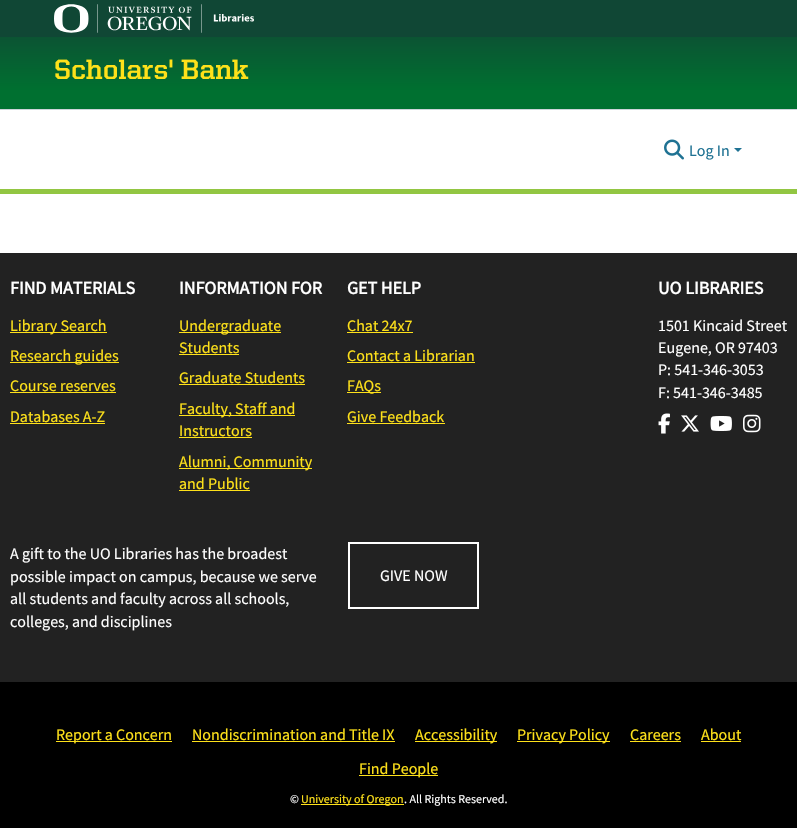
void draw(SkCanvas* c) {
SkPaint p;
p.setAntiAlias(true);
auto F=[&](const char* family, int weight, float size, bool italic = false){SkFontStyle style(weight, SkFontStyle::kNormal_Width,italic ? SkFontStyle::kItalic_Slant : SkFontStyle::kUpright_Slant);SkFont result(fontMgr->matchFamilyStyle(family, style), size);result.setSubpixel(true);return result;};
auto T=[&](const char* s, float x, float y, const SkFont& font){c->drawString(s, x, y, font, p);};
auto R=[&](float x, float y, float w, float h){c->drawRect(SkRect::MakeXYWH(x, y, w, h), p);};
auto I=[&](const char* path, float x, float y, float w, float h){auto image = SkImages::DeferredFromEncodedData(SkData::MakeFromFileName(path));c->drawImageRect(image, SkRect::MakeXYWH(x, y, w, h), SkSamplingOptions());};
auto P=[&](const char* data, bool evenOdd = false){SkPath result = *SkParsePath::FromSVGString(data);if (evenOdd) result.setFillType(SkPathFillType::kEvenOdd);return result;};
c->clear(0xffffffff);
p.setColor(0xff92c642);
R(0,189,797,5);
p.setColor(0xff104735);
R(0,0,797,37);
I("1.png",54,4,200,29);
{
const SkColor colors[] = {0xff007030,0xff104735};
const float stops[] = {.19,1};
const SkPoint ends[] = {{399,109}, {399,12}};
p.setShader(SkGradientShader::MakeLinear(ends, colors, stops, 2, SkTileMode::kClamp));
p.setAlpha(255);
}
R(0,37,797,72);
auto f1 = F("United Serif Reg",700,28);
p.setShader(nullptr);
p.setColor(0xfffee11a);
T("Scholars' Bank",54,79,f1);
p.setColor(0xffced4da);
R(0,109,797,1);
I("2.png",664,139,20,21);
auto f2 = F("Source Sans Pro",400,16);
p.setColor(0xff1f7293);
T("Log In",689,156,f2);
c->drawPath(P("M734 148h8l-4 4z"),p);
p.setColor(0xff222222);
R(0,253,797,429);
auto f3 = F("Source Sans Pro",700,18);
p.setColor(0xffffffff);
T("FIND MATERIALS",10,294,f3);
p.setColor(0xfffee11a);
R(10,332,97,1);
T("Library Search",10,331,f2);
R(10,362,109,1);
T("Research guides",10,361,f2);
T("Course reserves",10,391,f2);
R(10,392,106,1);
T("Databases A-Z",10,422,f2);
R(10,423,95,1);
p.setColor(0xffffffff);
T("INFORMATION FOR",179,294,f3);
p.setColor(0xfffee11a);
R(179,332,102,1);
T("Undergraduate",179,331,f2);
T("Students",179,353,f2);
R(179,354,60,1);
T("Graduate Students",179,383,f2);
R(179,384,126,1);
R(179,415,116,1);
T("Faculty, Staff and",179,414,f2);
T("Instructors",179,436,f2);
R(179,437,73,1);
R(179,468,133,1);
T("Alumni, Community",179,467,f2);
T("and Public",179,489,f2);
R(179,490,71,1);
p.setColor(0xffffffff);
T("GET HELP",347,294,f3);
p.setColor(0xfffee11a);
T("Chat 24x7",347,331,f2);
R(347,332,66,1);
T("Contact a Librarian",347,361,f2);
R(347,362,128,1);
R(347,392,34,1);
T("FAQs",347,391,f2);
T("Give Feedback",347,422,f2);
R(347,423,98,1);
p.setColor(0xffffffff);
T("A gift to the UO Libraries has the broadest",10,559,f2);
T("possible impact on campus, because we serve",10,582,f2);
T("all students and faculty across all schools,",10,604,f2);
T("colleges, and disciplines",10,627,f2);
p.setStroke(true);
p.setStrokeWidth(2);
c->drawRect(SkRect::MakeXYWH(349,543,129,65),p);
p.setStroke(false);
T("GIVE NOW",380,581,f2);
T("UO LIBRARIES",658,294,f3);
T("1501 Kincaid Street",658,331,f2);
T("Eugene, OR 97403",658,353,f2);
T("P: 541-346-3053",658,375,f2);
T("F: 541-346-3485",658,398,f2);
I("3.png",658,413,12,21);
I("4.png",681,415,18,17);
I("5.png",710,416,22,15);
I("6.png",743,414,18,19);
p.setColor(0xff000000);
R(0,682,797,146);
p.setColor(0xfffee11a);
R(56,741,116,1);
T("Report a Concern",56,740,f2);
T("Nondiscrimination and Title IX",192,740,f2);
R(192,741,203,1);
R(415,741,82,1);
T("Accessibility",415,740,f2);
R(517,741,93,1);
T("Privacy Policy",517,740,f2);
T("Careers",630,740,f2);
R(630,741,51,1);
T("About",701,740,f2);
R(701,741,40,1);
R(359,775,79,1);
T("Find People",359,774,f2);
auto f4 = F("Source Sans Pro",400,12);
p.setColor(0xffffffff);
T("©",290,803,f4);
p.setColor(0xfffee11a);
R(301,804,103,1);
T("University of Oregon",301,803,f4);
p.setColor(0xffffffff);
T(". All Rights Reserved.",404,803,f4);
}
